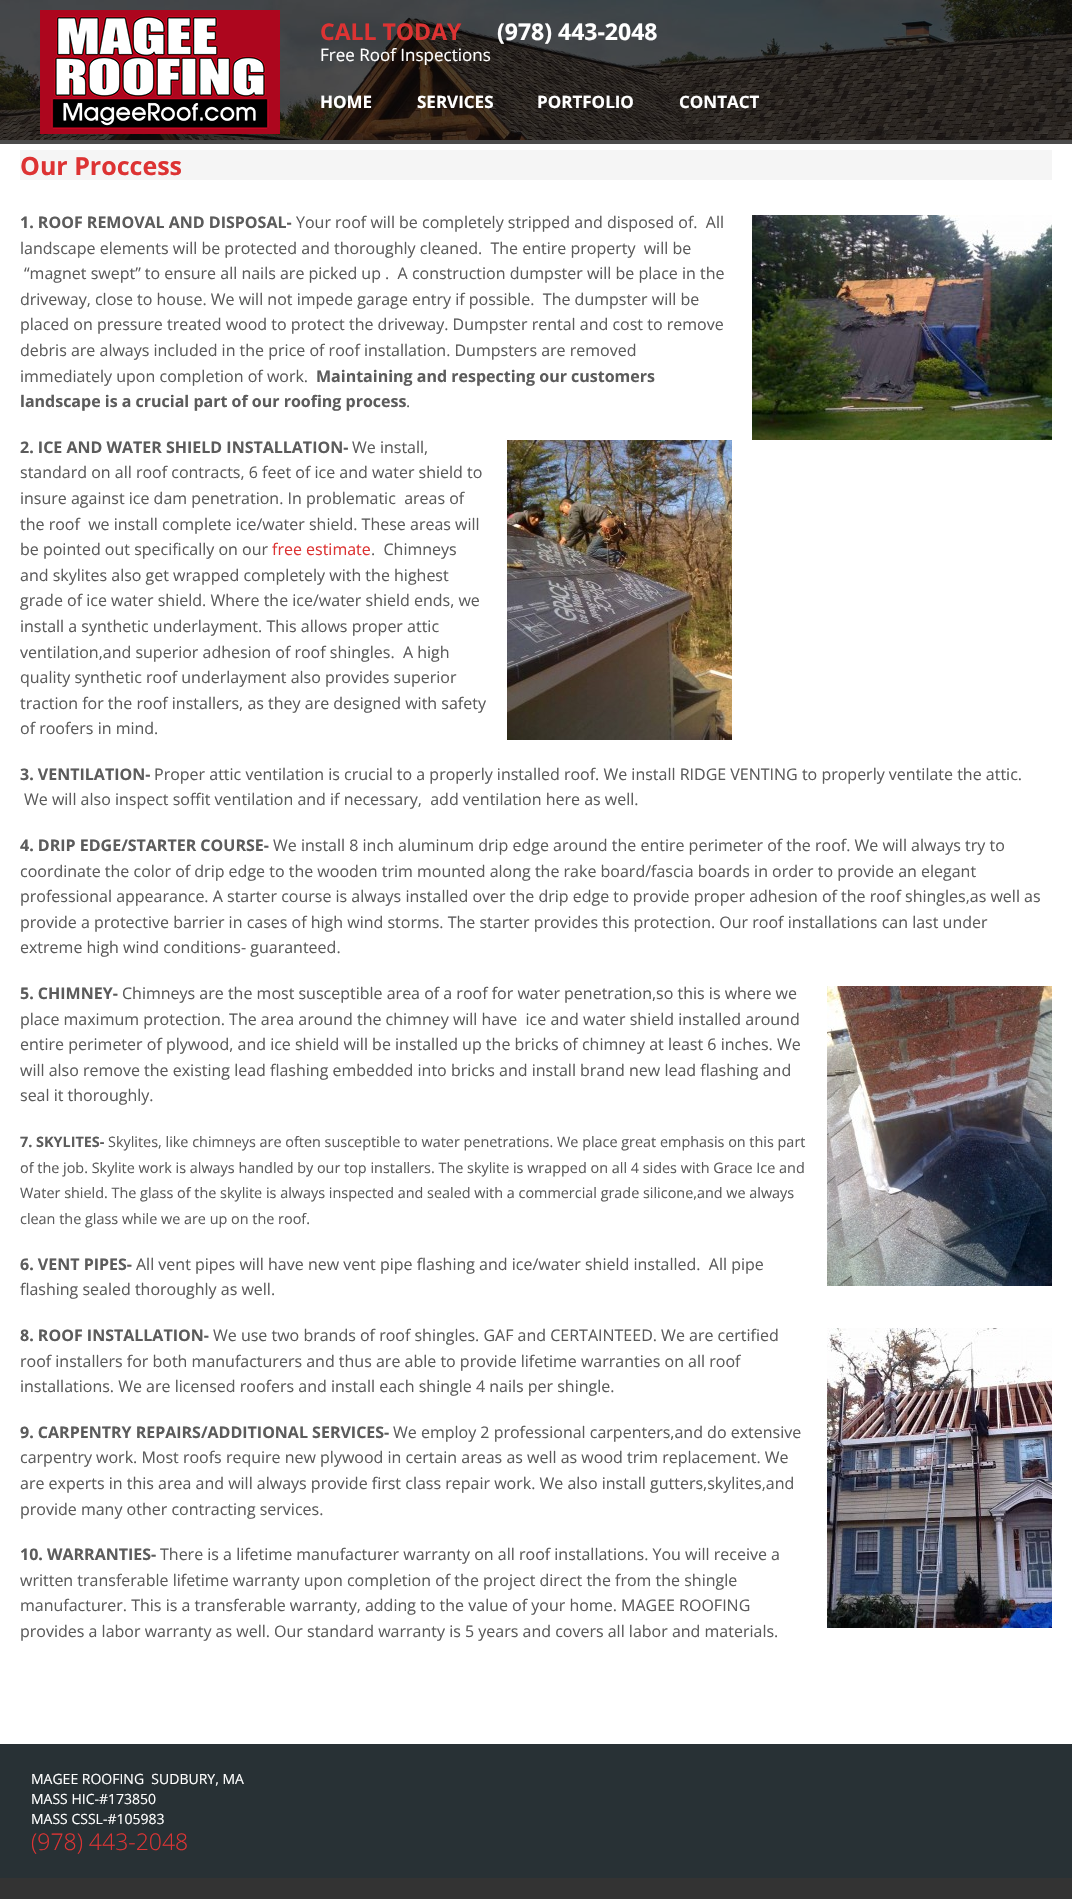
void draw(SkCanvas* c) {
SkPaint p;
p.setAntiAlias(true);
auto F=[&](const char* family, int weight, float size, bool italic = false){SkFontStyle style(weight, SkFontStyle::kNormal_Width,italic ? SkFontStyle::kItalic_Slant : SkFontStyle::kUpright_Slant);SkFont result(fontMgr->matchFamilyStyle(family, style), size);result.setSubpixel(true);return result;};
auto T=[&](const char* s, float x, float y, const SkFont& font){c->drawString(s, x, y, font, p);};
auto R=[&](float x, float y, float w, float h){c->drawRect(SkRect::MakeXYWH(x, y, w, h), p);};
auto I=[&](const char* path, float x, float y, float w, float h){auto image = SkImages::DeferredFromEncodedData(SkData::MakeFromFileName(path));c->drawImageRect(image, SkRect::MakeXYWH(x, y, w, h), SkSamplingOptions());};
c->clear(0xff333333);
I("1.png",0,0,1072,140);
p.setColor(0xffffffff);
R(0,140,1072,1604);
p.setColor(0xb3000000);
R(0,0,1072,144);
I("2.png",40,10,240,124);
auto f1 = F("Open Sans",700,23);
p.setColor(0xffdd3333);
T("CALL TODAY",320,40,f1);
p.setColor(0xffffffff);
T("(978) 443-2048",497,40,f1);
auto f2 = F("Open Sans",400,17);
T("Free Roof Inspections",320,61,f2);
auto f3 = F("Open Sans",700,17);
T("HOME",320,108,f3);
T("SERVICES",417,108,f3);
T("PORTFOLIO",537,108,f3);
T("CONTACT",679,108,f3);
p.setColor(0xfff5f5f5);
R(20,150,1032,30);
auto f4 = F("Open Sans",700,25);
p.setColor(0xffdd3333);
T("Our Proccess",20,175,f4);
auto f5 = F("Open Sans",700,16);
p.setColor(0xff5c5c5c);
T("1. ROOF REMOVAL AND DISPOSAL-",20,228,f5);
auto f6 = F("Open Sans",400,16);
T("Your roof will be completely stripped and disposed of.  All",296,228,f6);
T("landscape elements will be protected and thoroughly cleaned.  The entire property  will be",20,254,f6);
T("“magnet swept” to ensure all nails are picked up .  A construction dumpster will be place in the",24,279,f6);
T("driveway, close to house. We will not impede garage entry if possible.  The dumpster will be",20,305,f6);
T("placed on pressure treated wood to protect the driveway. Dumpster rental and cost to remove",20,330,f6);
T("debris are always included in the price of roof installation. Dumpsters are removed",20,356,f6);
T("immediately upon completion of work.",20,382,f6);
T("Maintaining and respecting our customers",316,382,f5);
T("landscape is a crucial part of our roofing process",20,407,f5);
T(".",406,407,f6);
I("3.png",752,215,300,225);
T("2. ICE AND WATER SHIELD INSTALLATION-",20,453,f5);
T("We install,",352,453,f6);
T("standard on all roof contracts, 6 feet of ice and water shield to",20,478,f6);
T("insure against ice dam penetration. In problematic  areas of",20,504,f6);
T("the roof  we install complete ice/water shield. These areas will",20,530,f6);
T("be pointed out specifically on our",20,555,f6);
p.setColor(0xffdd3333);
T("free estimate",272,555,f6);
p.setColor(0xff5c5c5c);
T(".  Chimneys",371,555,f6);
T("and skylites also get wrapped completely with the highest",20,581,f6);
T("grade of ice water shield. Where the ice/water shield ends, we",20,606,f6);
T("install a synthetic underlayment. This allows proper attic",20,632,f6);
T("ventilation,and superior adhesion of roof shingles.  A high",20,658,f6);
T("quality synthetic roof underlayment also provides superior",20,683,f6);
T("traction for the roof installers, as they are designed with safety",20,709,f6);
T("of roofers in mind.",20,734,f6);
I("4.png",507,440,225,300);
T("3. VENTILATION-",20,780,f5);
T("Proper attic ventilation is crucial to a properly installed roof. We install RIDGE VENTING to properly ventilate the attic.",154,780,f6);
T("We will also inspect soffit ventilation and if necessary,  add ventilation here as well.",24,805,f6);
T("4. DRIP EDGE/STARTER COURSE-",20,851,f5);
T("We install 8 inch aluminum drip edge around the entire perimeter of the roof. We will always try to",273,851,f6);
T("coordinate the color of drip edge to the wooden trim mounted along the rake board/fascia boards in order to provide an elegant",20,877,f6);
T("professional appearance. A starter course is always installed over the drip edge to provide proper adhesion of the roof shingles,as well as",20,902,f6);
T("provide a protective barrier in cases of high wind storms. The starter provides this protection. Our roof installations can last under",20,928,f6);
T("extreme high wind conditions- guaranteed.",20,953,f6);
T("5. CHIMNEY-",20,999,f5);
T("Chimneys are the most susceptible area of a roof for water penetration,so this is where we",122,999,f6);
T("place maximum protection. The area around the chimney will have  ice and water shield installed around",20,1025,f6);
T("entire perimeter of plywood, and ice shield will be installed up the bricks of chimney at least 6 inches. We",20,1050,f6);
T("will also remove the existing lead flashing embedded into bricks and install brand new lead flashing and",20,1076,f6);
T("seal it thoroughly.",20,1101,f6);
I("5.png",827,986,225,300);
auto f7 = F("Open Sans",700,14.4);
T("7. SKYLITES-",20,1147,f7);
auto f8 = F("Open Sans",400,14.4);
T("Skylites, like chimneys are often susceptible to water penetrations. We place great emphasis on this part",108,1147,f8);
T("of the job. Skylite work is always handled by our top installers. The skylite is wrapped on all 4 sides with Grace Ice and",20,1173,f8);
T("Water shield. The glass of the skylite is always inspected and sealed with a commercial grade silicone,and we always",20,1198,f8);
T("clean the glass while we are up on the roof.",20,1224,f8);
T("6. VENT PIPES-",20,1270,f5);
T("All vent pipes will have new vent pipe flashing and ice/water shield installed.  All pipe",136,1270,f6);
T("flashing sealed thoroughly as well.",20,1295,f6);
T("8. ROOF INSTALLATION-",20,1341,f5);
T("We use two brands of roof shingles. GAF and CERTAINTEED. We are certified",213,1341,f6);
T("roof installers for both manufacturers and thus are able to provide lifetime warranties on all roof",20,1367,f6);
T("installations. We are licensed roofers and install each shingle 4 nails per shingle.",20,1392,f6);
I("6.png",827,1328,225,300);
T("9. CARPENTRY REPAIRS/ADDITIONAL SERVICES-",20,1438,f5);
T("We employ 2 professional carpenters,and do extensive",393,1438,f6);
T("carpentry work. Most roofs require new plywood in certain areas as well as wood trim replacement. We",20,1463,f6);
T("are experts in this area and will always provide first class repair work. We also install gutters,skylites,and",20,1489,f6);
T("provide many other contracting services.",20,1515,f6);
T("10. WARRANTIES-",20,1560,f5);
T("There is a lifetime manufacturer warranty on all roof installations. You will receive a",160,1560,f6);
T("written transferable lifetime warranty upon completion of the project direct the from the shingle",20,1586,f6);
T("manufacturer. This is a transferable warranty, adding to the value of your home. MAGEE ROOFING",20,1611,f6);
T("provides a labor warranty as well. Our standard warranty is 5 years and covers all labor and materials.",20,1637,f6);
p.setColor(0xff283135);
R(0,1744,1072,134);
auto f9 = F("Open Sans",400,14);
p.setColor(0xffffffff);
T("MAGEE ROOFING  SUDBURY, MA",31,1784,f9);
T("MASS HIC-#173850",31,1804,f9);
T("MASS CSSL-#105983",31,1824,f9);
auto f10 = F("Open Sans",300,23);
p.setColor(0xffdd3333);
T("(978) 443-2048",31,1850,f10);
}
